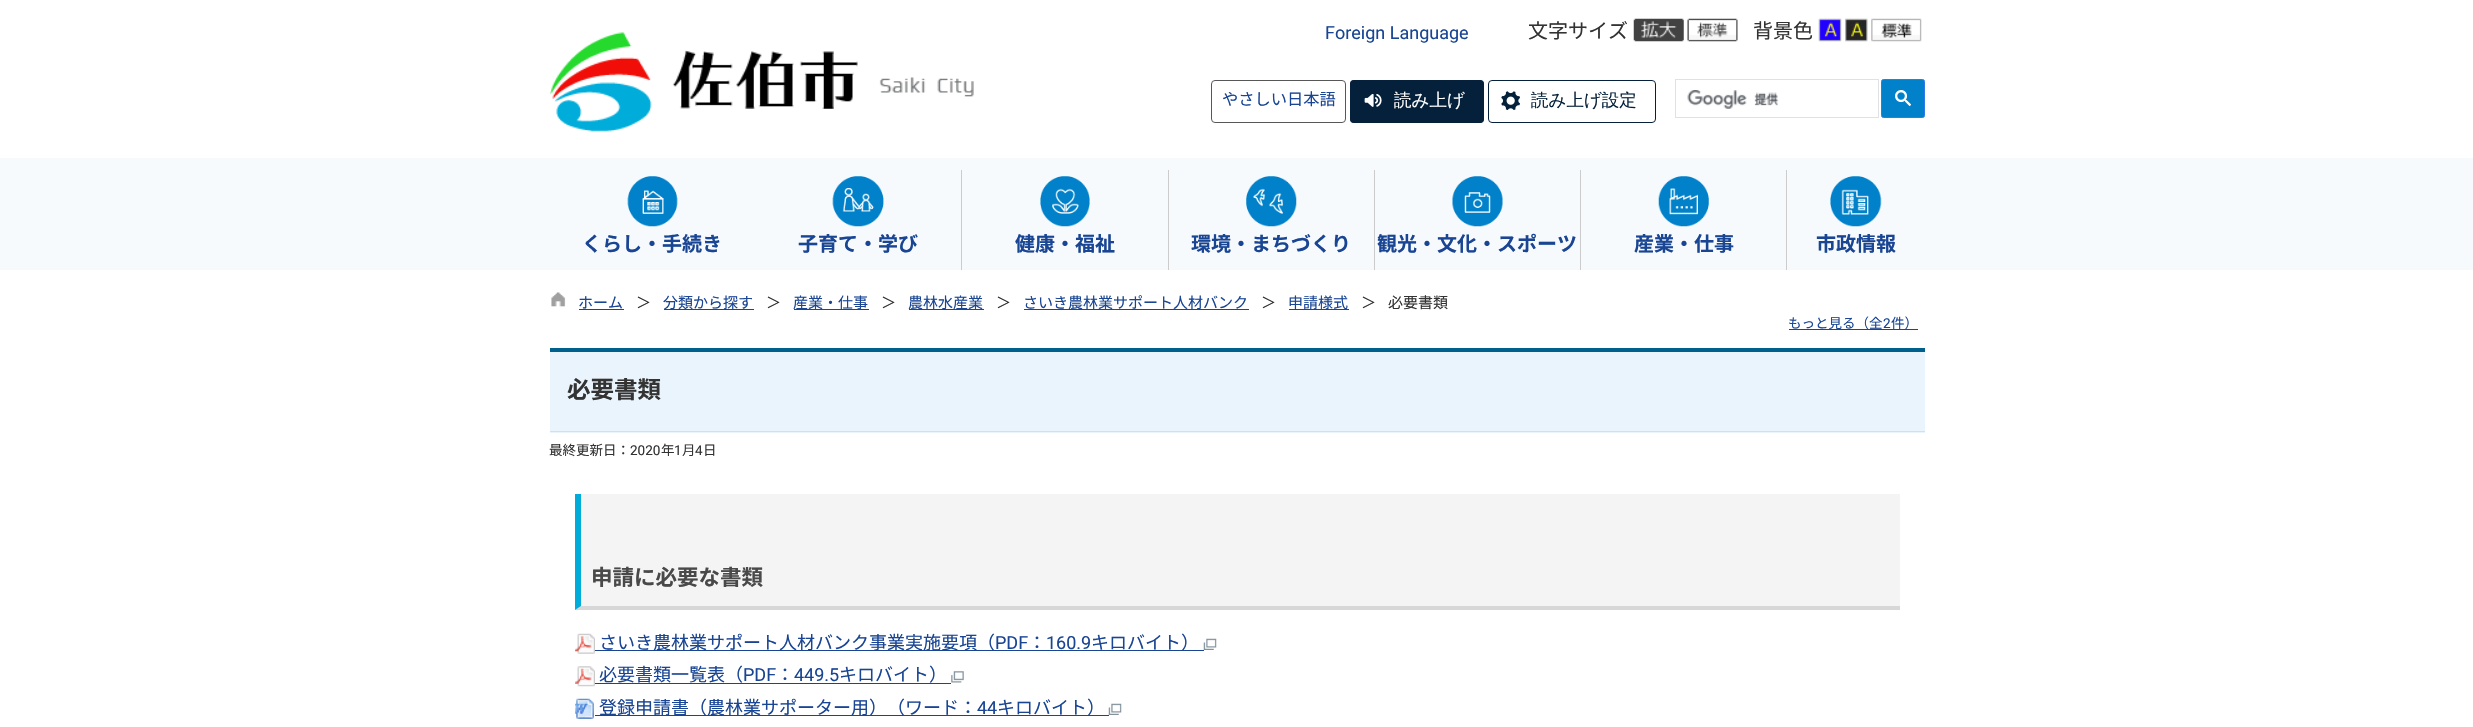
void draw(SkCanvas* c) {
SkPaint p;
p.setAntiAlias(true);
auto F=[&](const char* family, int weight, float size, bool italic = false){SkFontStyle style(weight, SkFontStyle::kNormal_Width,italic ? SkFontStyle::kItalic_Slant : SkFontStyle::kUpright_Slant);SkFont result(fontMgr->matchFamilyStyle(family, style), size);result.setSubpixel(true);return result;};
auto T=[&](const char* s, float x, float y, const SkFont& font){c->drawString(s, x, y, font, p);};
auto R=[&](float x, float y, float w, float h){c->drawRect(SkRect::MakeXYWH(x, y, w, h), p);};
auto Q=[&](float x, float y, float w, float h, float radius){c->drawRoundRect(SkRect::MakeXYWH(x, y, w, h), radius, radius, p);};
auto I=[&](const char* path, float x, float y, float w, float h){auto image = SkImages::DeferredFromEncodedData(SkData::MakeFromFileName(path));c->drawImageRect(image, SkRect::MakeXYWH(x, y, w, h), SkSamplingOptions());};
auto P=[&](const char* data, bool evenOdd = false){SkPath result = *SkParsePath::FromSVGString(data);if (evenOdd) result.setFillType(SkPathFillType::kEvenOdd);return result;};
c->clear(0xffffffff);
I("1.png",550,32,424,100);
auto f1 = F("Roboto",400,18);
p.setColor(0xff194593);
T("Foreign Language",1325,39,f1);
auto f2 = F("Noto Sans CJK JP",400,20);
p.setColor(0xff333333);
T("文字サイズ",1528,38,f2);
I("2.png",1633,18,51,24);
I("3.png",1687,18,51,24);
T("背景色",1753,38,f2);
I("4.png",1818,18,24,24);
I("5.png",1845,18,23,24);
I("6.png",1871,18,51,24);
p.setStroke(true);
p.setStrokeWidth(1);
p.setColor(0xff575757);
c->drawRoundRect(SkRect::MakeXYWH(1211.5,80.5,134,42),3.5,3.5,p);
auto f3 = F("Noto Sans CJK JP",400,16.25);
p.setStroke(false);
p.setColor(0xff194593);
T("やさしい日本語",1222,105,f3);
p.setColor(0xff05203a);
Q(1350,80,134,43,4);
I("7.png",1364,94,18,13);
p.setStroke(true);
c->drawRoundRect(SkRect::MakeXYWH(1350.5,80.5,133,42),3.5,3.5,p);
auto f4 = F("WenQuanYi Zen Hei",500,17.5);
p.setStroke(false);
p.setColor(0xffffffff);
T("読み上げ",1394,106,f4);
I("8.png",1501,91,19,19);
p.setStroke(true);
p.setColor(0xff05203a);
c->drawRoundRect(SkRect::MakeXYWH(1488.5,80.5,167,42),3.5,3.5,p);
p.setStroke(false);
T("読み上げ設定",1531,106,f4);
p.setStroke(true);
p.setColor(0xffdfe1e5);
c->drawRect(SkRect::MakeXYWH(1675.5,79.5,203,38),p);
I("9.png",1687,90,92,19);
p.setStroke(false);
p.setColor(0xff0081c9);
c->drawRoundRect(SkRect::MakeXYWH(1881.5,79.5,43,38),2,2,p);
p.setStroke(true);
p.setColor(0xff3079ed);
c->drawRoundRect(SkRect::MakeXYWH(1881.5,79.5,43,38),2,2,p);
I("10.png",1895,90,16,16);
p.setStroke(false);
p.setColor(0xfff7fafd);
R(0,158,2473,112);
I("11.png",627,176,51,51);
auto f5 = F("Noto Sans CJK JP",700,20);
p.setColor(0xff194593);
T("くらし・手続き",582,251,f5);
p.setColor(0xffcccccc);
R(961,170,1,100);
I("12.png",832,176,52,51);
p.setColor(0xff194593);
T("子育て・学び",798,251,f5);
p.setColor(0xffcccccc);
R(1168,170,1,100);
I("13.png",1040,176,50,51);
p.setColor(0xff194593);
T("健康・福祉",1015,251,f5);
p.setColor(0xffcccccc);
R(1374,170,1,100);
I("14.png",1246,176,51,51);
p.setColor(0xff194593);
T("環境・まちづくり",1191,251,f5);
p.setColor(0xffcccccc);
R(1580,170,1,100);
I("15.png",1452,176,51,51);
p.setColor(0xff194593);
T("観光・文化・スポーツ",1377,251,f5);
p.setColor(0xffcccccc);
R(1786,170,1,100);
I("16.png",1658,176,51,51);
p.setColor(0xff194593);
T("産業・仕事",1634,251,f5);
I("17.png",1830,176,52,51);
T("市政情報",1816,251,f5);
I("18.png",551,292,15,15);
auto f6 = F("Noto Sans CJK JP",400,15);
T("ホーム",578,308,f6);
R(579,309,45,1);
p.setColor(0xff333333);
T("＞",636,308,f6);
p.setColor(0xff194593);
R(664,309,90,1);
T("分類から探す",663,308,f6);
p.setColor(0xff333333);
T("＞",766,308,f6);
p.setColor(0xff194593);
R(794,309,75,1);
T("産業・仕事",793,308,f6);
p.setColor(0xff333333);
T("＞",881,308,f6);
p.setColor(0xff194593);
R(909,309,75,1);
T("農林水産業",908,308,f6);
p.setColor(0xff333333);
T("＞",996,308,f6);
p.setColor(0xff194593);
R(1024,309,225,1);
T("さいき農林業サポート人材バンク",1023,308,f6);
p.setColor(0xff333333);
T("＞",1261,308,f6);
p.setColor(0xff194593);
R(1289,309,60,1);
T("申請様式",1288,308,f6);
p.setColor(0xff333333);
T("＞",1361,308,f6);
T("必要書類",1388,308,f6);
p.setColor(0xff194593);
R(1789,329,129,1);
auto f7 = F("Noto Sans CJK JP",400,13.5);
T("もっと見る（全",1788,328,f7);
auto f8 = F("Roboto",400,13.5);
T("2",1883,328,f8);
T("件）",1891,328,f7);
p.setColor(0xffeaf4fc);
R(550,352,1375,81);
p.setColor(0xff00608d);
R(550,348,1375,4);
p.setColor(0xffdddddd);
R(550,431,1375,1);
auto f9 = F("Noto Sans CJK JP",700,23.5);
p.setColor(0xff333333);
T("必要書類",567,398,f9);
T("最終更新日：",549,455,f7);
T("2020",630,455,f8);
T("年",661,455,f7);
T("1",674,455,f8);
T("月",682,455,f7);
T("4",695,455,f8);
T("日",703,455,f7);
p.setColor(0xfff4f4f4);
R(575,494,1325,116);
p.setColor(0xffd7d7d7);
c->drawPath(P("M1900 610h-1325l6-4h1319z"),p);
p.setColor(0xff00adda);
c->drawPath(P("M575 610v-116h6v112z"),p);
auto f10 = F("Noto Sans CJK JP",700,21.5);
p.setColor(0xff494949);
T("申請に必要な書類",591,585,f10);
I("19.png",575,633,20,21);
p.setColor(0xff194593);
R(595,650,609,1);
auto f11 = F("Noto Sans CJK JP",400,18);
T("さいき農林業サポート人材バンク事業実施要項（",599,649,f11);
T("PDF",995,649,f1);
T("：",1028,649,f11);
T("160.9",1046,649,f1);
T("キロバイト）",1091,649,f11);
I("20.png",1203,638,14,12);
I("21.png",575,666,20,21);
T("必要書類一覧表（",599,681,f11);
T("PDF",743,681,f1);
T("：",776,681,f11);
T("449.5",794,681,f1);
R(595,683,356,1);
T("キロバイト）",839,681,f11);
I("22.png",951,671,13,12);
I("23.png",575,698,19,21);
R(595,715,514,1);
T("登録申請書（農林業サポーター用）（ワード：",599,714,f11);
T("44",977,714,f1);
T("キロバイト）",997,714,f11);
I("24.png",1108,703,14,12);
}
